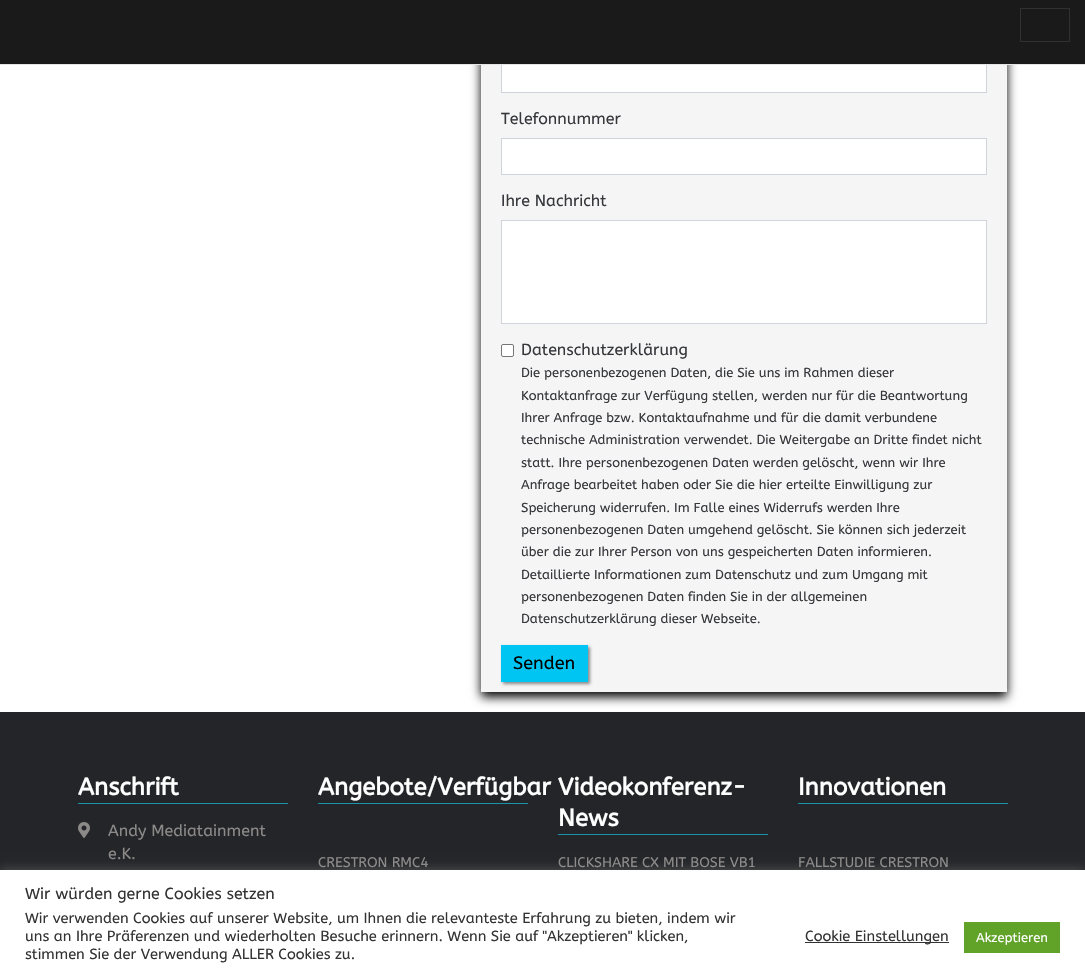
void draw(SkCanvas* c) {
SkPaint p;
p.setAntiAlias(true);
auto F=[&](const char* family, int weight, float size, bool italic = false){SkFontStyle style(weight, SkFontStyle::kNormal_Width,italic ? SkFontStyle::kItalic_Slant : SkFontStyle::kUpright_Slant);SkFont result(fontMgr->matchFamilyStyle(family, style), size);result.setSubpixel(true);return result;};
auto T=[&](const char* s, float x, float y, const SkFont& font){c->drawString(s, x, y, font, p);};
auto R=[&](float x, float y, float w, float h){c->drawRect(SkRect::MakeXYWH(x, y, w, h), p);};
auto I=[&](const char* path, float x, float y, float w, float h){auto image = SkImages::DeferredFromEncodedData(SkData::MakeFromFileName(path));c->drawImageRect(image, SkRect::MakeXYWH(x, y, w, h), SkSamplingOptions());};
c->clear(0xffffffff);
p.setColor(0xff242528);
R(0,712,1085,158);
p.setColor(0xff000000);
p.setMaskFilter(SkMaskFilter::MakeBlur(kNormal_SkBlurStyle, 5));
c->drawRect(SkRect::MakeXYWH(481,-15,526,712),p);
p.setMaskFilter(nullptr);
p.setColor(0xfff5f5f5);
R(481,65,526,627);
p.setColor(0xffffffff);
R(502,65,484,27);
p.setStroke(true);
p.setStrokeWidth(1);
p.setColor(0xffced4da);
c->drawRect(SkRect::MakeXYWH(501.5,57.5,485,35),p);
p.setStroke(false);
p.setColor(0xff1a1a1a);
R(0,0,1085,64);
p.setColor(0xffe5e5e5);
R(0,64,1085,1);
p.setStroke(true);
p.setColor(0xff313131);
c->drawRect(SkRect::MakeXYWH(1020.5,8.5,49,33),p);
auto f1 = F("ABeeZee",400,16);
p.setStroke(false);
p.setColor(0xff36373b);
T("Telefonnummer",501,124,f1);
p.setColor(0xffffffff);
c->drawRect(SkRect::MakeXYWH(501.5,138.5,485,36),p);
p.setStroke(true);
p.setColor(0xffced4da);
c->drawRect(SkRect::MakeXYWH(501.5,138.5,485,36),p);
p.setStroke(false);
p.setColor(0xff36373b);
T("Ihre Nachricht",501,206,f1);
p.setColor(0xffffffff);
c->drawRect(SkRect::MakeXYWH(501.5,220.5,485,103),p);
p.setStroke(true);
p.setColor(0xffced4da);
c->drawRect(SkRect::MakeXYWH(501.5,220.5,485,103),p);
p.setStroke(false);
p.setColor(0xffffffff);
c->drawRoundRect(SkRect::MakeXYWH(501.5,344.5,12,12),1.5,1.5,p);
p.setStroke(true);
p.setColor(0xff767676);
c->drawRoundRect(SkRect::MakeXYWH(501.5,344.5,12,12),1.5,1.5,p);
p.setStroke(false);
p.setColor(0xff36373b);
T("Datenschutzerklärung",521,355,f1);
auto f2 = F("ABeeZee",400,13);
T("Die personenbezogenen Daten, die Sie uns im Rahmen dieser",521,377,f2);
T("Kontaktanfrage zur Verfügung stellen, werden nur für die Beantwortung",521,400,f2);
T("Ihrer Anfrage bzw. Kontaktaufnahme und für die damit verbundene",521,422,f2);
T("technische Administration verwendet. Die Weitergabe an Dritte findet nicht",521,444,f2);
T("statt. Ihre personenbezogenen Daten werden gelöscht, wenn wir Ihre",521,467,f2);
T("Anfrage bearbeitet haben oder Sie die hier erteilte Einwilligung zur",521,489,f2);
T("Speicherung widerrufen. Im Falle eines Widerrufs werden Ihre",521,512,f2);
T("personenbezogenen Daten umgehend gelöscht. Sie können sich jederzeit",521,534,f2);
T("über die zur Ihrer Person von uns gespeicherten Daten informieren.",521,556,f2);
T("Detaillierte Informationen zum Datenschutz und zum Umgang mit",521,579,f2);
T("personenbezogenen Daten finden Sie in der allgemeinen",521,601,f2);
T("Datenschutzerklärung dieser Webseite.",521,623,f2);
p.setColor(0xff888888);
p.setMaskFilter(SkMaskFilter::MakeBlur(kNormal_SkBlurStyle, 1.5));
c->drawRect(SkRect::MakeXYWH(503,647,87,37),p);
p.setMaskFilter(nullptr);
p.setColor(0xff00c5f2);
R(501,645,87,37);
auto f3 = F("ABeeZee",400,18);
p.setColor(0xff000000);
T("Senden",513,669,f3);
p.setColor(0xff1c92a7);
R(78,803,210,1);
auto f4 = F("ABeeZee",700,24);
p.setColor(0xffffffff);
T("Anschrift",78,795,f4);
I("1.png",78,822,12,16);
p.setColor(0xff8c8989);
T("Andy Mediatainment",108,836,f1);
T("e.K.",108,859,f1);
p.setColor(0xff1c92a7);
R(318,803,210,1);
p.setColor(0xffffffff);
T("Angebote/Verfügbar Videokonferenz-",318,795,f4);
p.setColor(0xff1c92a7);
R(798,803,210,1);
p.setColor(0xffffffff);
T("Innovationen",798,795,f4);
p.setColor(0xff1c92a7);
R(558,834,210,1);
p.setColor(0xffffffff);
T("News",558,826,f4);
auto f5 = F("ABeeZee",400,14);
p.setColor(0xff8c8989);
T("CRESTRON RMC4",318,867,f5);
T("CLICKSHARE CX MIT BOSE VB1",558,867,f5);
T("FALLSTUDIE CRESTRON",798,867,f5);
p.setColor(0x4dacabab);
p.setMaskFilter(SkMaskFilter::MakeBlur(kNormal_SkBlurStyle, 5));
c->drawRect(SkRect::MakeXYWH(0,869,1085,108),p);
p.setMaskFilter(nullptr);
p.setColor(0xffffffff);
R(0,870,1085,108);
p.setColor(0xff333333);
T("Wir würden gerne Cookies setzen",25,899,f1);
auto f6 = F("ABeeZee",400,14.65);
T("Wir verwenden Cookies auf unserer Website, um Ihnen die relevanteste Erfahrung zu bieten, indem wir",25,923,f6);
T("uns an Ihre Präferenzen und wiederholten Besuche erinnern. Wenn Sie auf \"Akzeptieren\" klicken,",25,941,f6);
T("stimmen Sie der Verwendung ALLER Cookies zu.",25,959,f6);
R(805,942,144,1);
T("Cookie Einstellungen",805,941,f6);
p.setColor(0xff61a229);
R(964,922,96,31);
p.setColor(0xffffffff);
T("Akzeptieren",976,942,f2);
}
